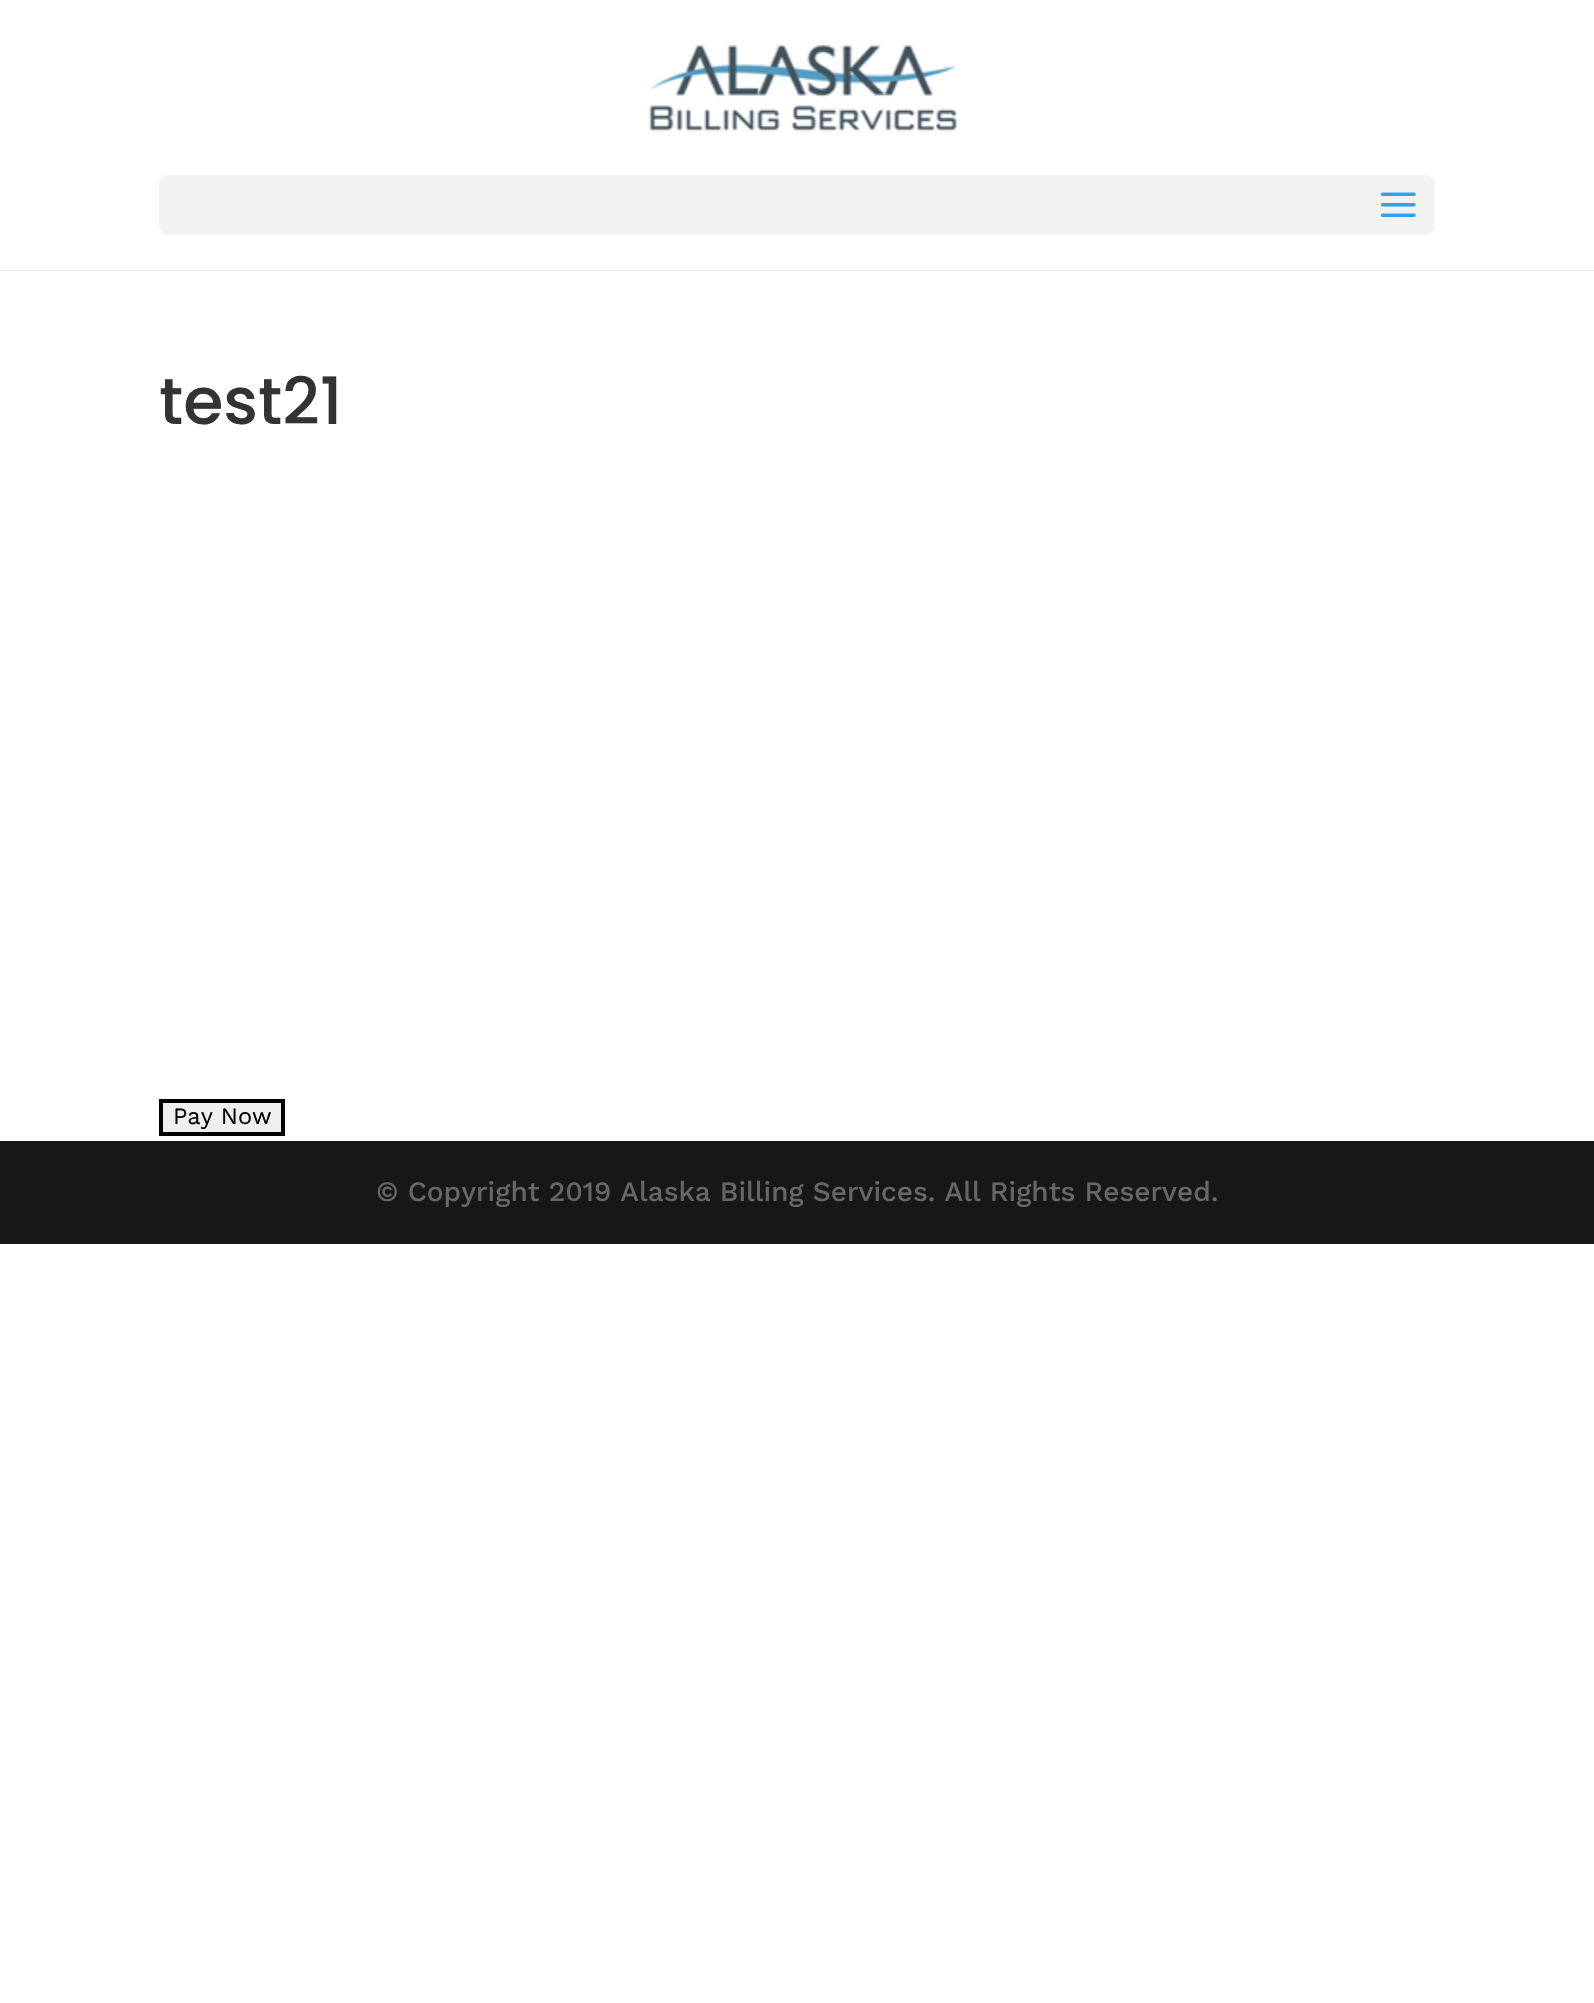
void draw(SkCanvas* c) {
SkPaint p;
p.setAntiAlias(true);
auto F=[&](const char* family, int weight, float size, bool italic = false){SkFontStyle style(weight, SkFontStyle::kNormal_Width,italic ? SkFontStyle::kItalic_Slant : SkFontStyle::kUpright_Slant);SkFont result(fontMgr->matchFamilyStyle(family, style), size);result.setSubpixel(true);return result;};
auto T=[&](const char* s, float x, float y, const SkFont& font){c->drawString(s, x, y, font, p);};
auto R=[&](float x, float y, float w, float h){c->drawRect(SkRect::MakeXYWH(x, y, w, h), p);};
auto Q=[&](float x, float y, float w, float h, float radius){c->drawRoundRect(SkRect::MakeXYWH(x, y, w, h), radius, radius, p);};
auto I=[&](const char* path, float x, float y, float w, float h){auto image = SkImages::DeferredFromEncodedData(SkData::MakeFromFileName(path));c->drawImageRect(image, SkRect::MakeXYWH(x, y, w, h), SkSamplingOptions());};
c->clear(0xffffffff);
p.setColor(0xffe6e6e6);
R(0,270,1594,1);
I("1.png",648,43,310,89);
p.setColor(0xfff2f2f2);
Q(159,175,1276,60,9);
I("2.png",1380,192,36,25);
auto f1 = F("Poppins",500,65);
p.setColor(0xff333333);
T("test21",159,424,f1);
p.setColor(0xffefefef);
c->drawRect(SkRect::MakeXYWH(161,1101,122,33),p);
p.setStroke(true);
p.setStrokeWidth(4);
p.setColor(0xff000000);
c->drawRect(SkRect::MakeXYWH(161,1101,122,33),p);
auto f2 = F("Work Sans",400,23.5);
p.setStroke(false);
T("Pay Now",173,1124,f2);
p.setColor(0xff171717);
R(0,1141,1594,103);
auto f3 = F("Work Sans",500,28);
p.setColor(0xff666666);
T("© Copyright 2019 Alaska Billing Services. All Rights Reserved.",376,1201,f3);
}
